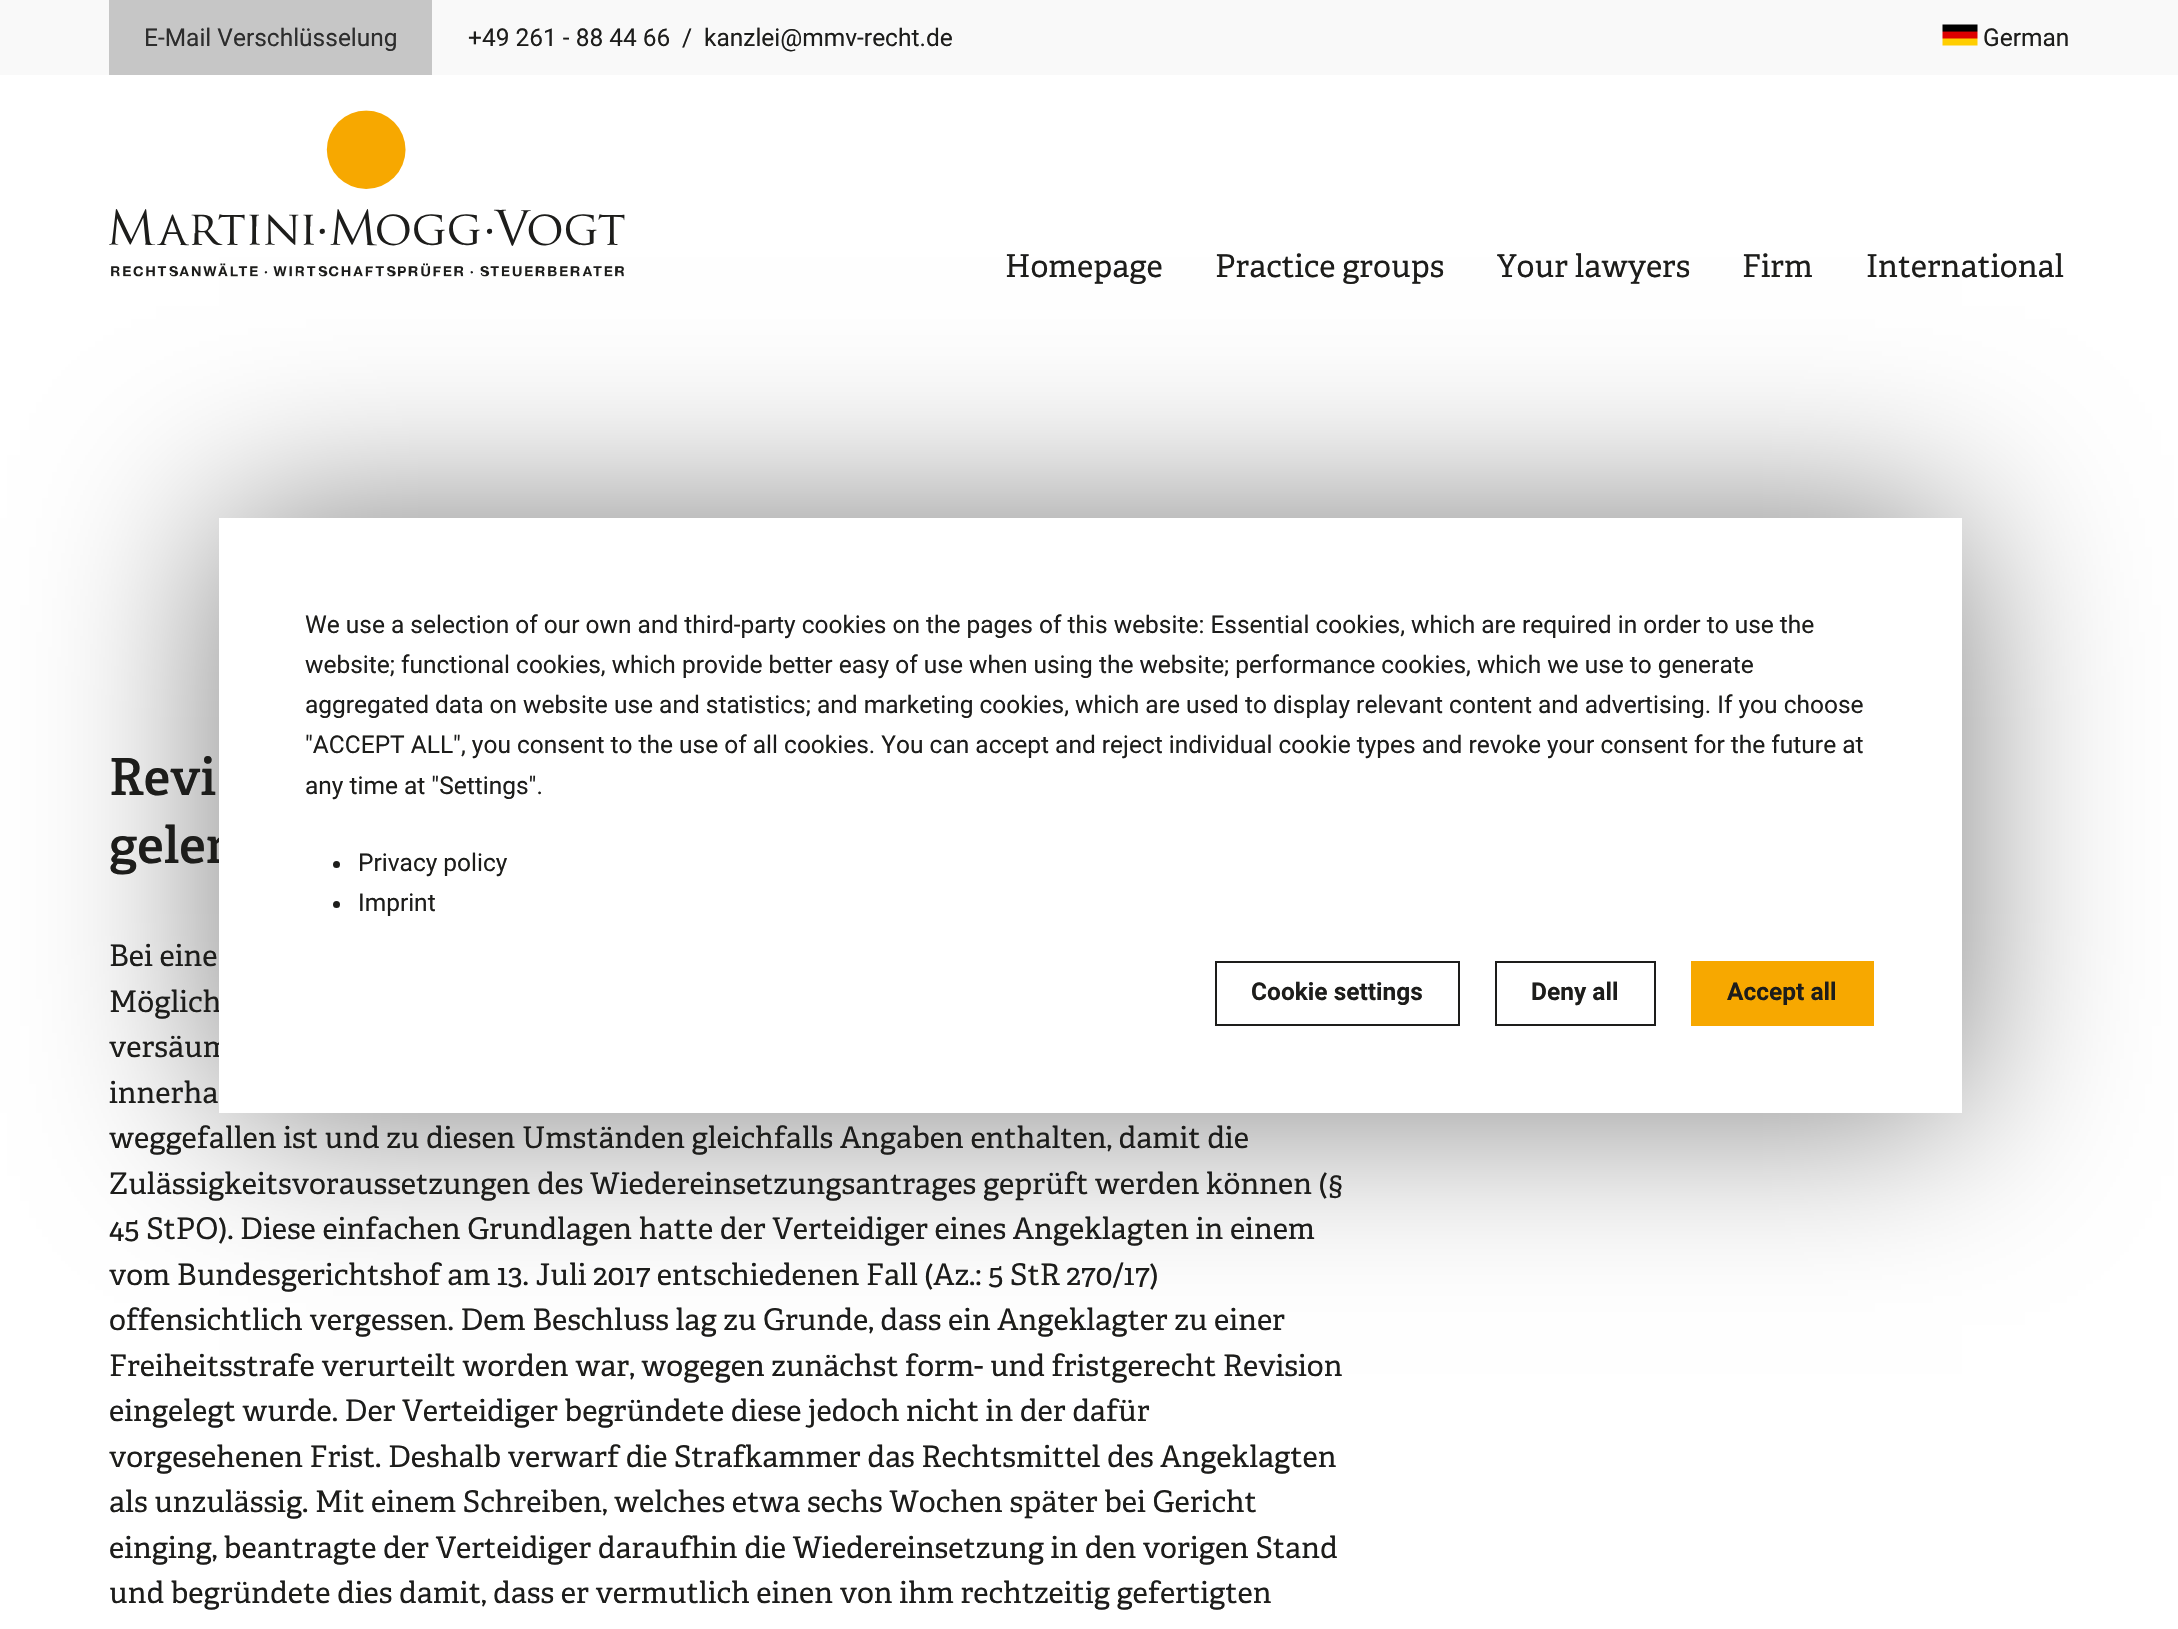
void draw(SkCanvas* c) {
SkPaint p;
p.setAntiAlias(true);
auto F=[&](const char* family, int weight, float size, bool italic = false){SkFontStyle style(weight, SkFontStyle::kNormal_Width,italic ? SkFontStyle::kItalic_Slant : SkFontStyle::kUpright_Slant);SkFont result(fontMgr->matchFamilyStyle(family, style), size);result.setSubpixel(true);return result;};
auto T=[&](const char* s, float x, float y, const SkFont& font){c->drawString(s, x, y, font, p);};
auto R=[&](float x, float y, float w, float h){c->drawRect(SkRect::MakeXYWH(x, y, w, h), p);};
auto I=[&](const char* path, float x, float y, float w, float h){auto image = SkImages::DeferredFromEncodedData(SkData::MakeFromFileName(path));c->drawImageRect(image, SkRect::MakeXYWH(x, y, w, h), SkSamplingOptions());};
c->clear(0xffffffff);
p.setColor(0xfff9f9f9);
R(0,0,2178,75);
p.setColor(0xffc6c6c6);
R(109,0,323,75);
auto f1 = F("Roboto",400,24.5);
p.setColor(0xff2d2d2d);
T("E-Mail Verschlüsselung",144,46,f1);
p.setColor(0xff1d1d1b);
T("+49 261 - 88 44 66",468,46,f1);
T("/",682,46,f1);
T("kanzlei@mmv-recht.de",704,46,f1);
I("1.png",1942,24,36,22);
T("German",1983,46,f1);
I("2.png",109,110,516,167);
auto f2 = F("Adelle",400,31.5);
T("Homepage",1005,277,f2);
T("Practice groups",1215,277,f2);
T("Your lawyers",1497,277,f2);
T("Firm",1742,277,f2);
T("International",1866,277,f2);
p.setColor(0x80000000);
p.setMaskFilter(SkMaskFilter::MakeBlur(kNormal_SkBlurStyle, 87.5));
c->drawRect(SkRect::MakeXYWH(219,518,1743,595),p);
p.setMaskFilter(nullptr);
auto f3 = F("Adelle",600,51);
p.setColor(0xff1d1d1b);
T("geler",109,863,f3);
auto f4 = F("Adelle",400,29.75);
T("Möglich",109,1012,f4);
T("versäum",109,1057,f4);
p.setColor(0xffffffff);
R(219,518,1743,595);
p.setColor(0xff1d1d1b);
T("We use a selection of our own and third-party cookies on the pages of this website: Essential cookies, which are required in order to use the",305,633,f1);
T("website; functional cookies, which provide better easy of use when using the website; performance cookies, which we use to generate",305,673,f1);
T("aggregated data on website use and statistics; and marketing cookies, which are used to display relevant content and advertising. If you choose",305,713,f1);
T("\"ACCEPT ALL\", you consent to the use of all cookies. You can accept and reject individual cookie types and revoke your consent for the future at",305,753,f1);
T("any time at \"Settings\".",305,794,f1);
c->drawCircle(336.5,864.5,3.5,p);
T("Privacy policy",358,871,f1);
c->drawCircle(336.5,904.5,3.5,p);
T("Imprint",358,911,f1);
p.setStroke(true);
p.setStrokeWidth(2);
c->drawRect(SkRect::MakeXYWH(1216,962,243,63),p);
auto f5 = F("Roboto",700,24.5);
p.setStroke(false);
T("Cookie settings",1251,1000,f5);
p.setStroke(true);
c->drawRect(SkRect::MakeXYWH(1496,962,159,63),p);
p.setStroke(false);
T("Deny all",1531,1000,f5);
p.setColor(0xfff7a800);
R(1691,961,183,65);
p.setColor(0xff1d1d1b);
T("Accept all",1727,1000,f5);
T("Revi",109,795,f3);
T("Bei eine",109,966,f4);
T("innerha",109,1103,f4);
T("weggefallen ist und zu diesen Umständen gleichfalls Angaben enthalten, damit die",109,1148,f4);
T("Zulässigkeitsvoraussetzungen des Wiedereinsetzungsantrages geprüft werden können (§",109,1194,f4);
T("45 StPO). Diese einfachen Grundlagen hatte der Verteidiger eines Angeklagten in einem",109,1239,f4);
T("vom Bundesgerichtshof am 13. Juli 2017 entschiedenen Fall (Az.: 5 StR 270/17)",109,1285,f4);
T("offensichtlich vergessen. Dem Beschluss lag zu Grunde, dass ein Angeklagter zu einer",109,1330,f4);
T("Freiheitsstrafe verurteilt worden war, wogegen zunächst form- und fristgerecht Revision",109,1376,f4);
T("eingelegt wurde. Der Verteidiger begründete diese jedoch nicht in der dafür",109,1421,f4);
T("vorgesehenen Frist. Deshalb verwarf die Strafkammer das Rechtsmittel des Angeklagten",109,1467,f4);
T("als unzulässig. Mit einem Schreiben, welches etwa sechs Wochen später bei Gericht",109,1512,f4);
T("einging, beantragte der Verteidiger daraufhin die Wiedereinsetzung in den vorigen Stand",109,1558,f4);
T("und begründete dies damit, dass er vermutlich einen von ihm rechtzeitig gefertigten",109,1603,f4);
}
